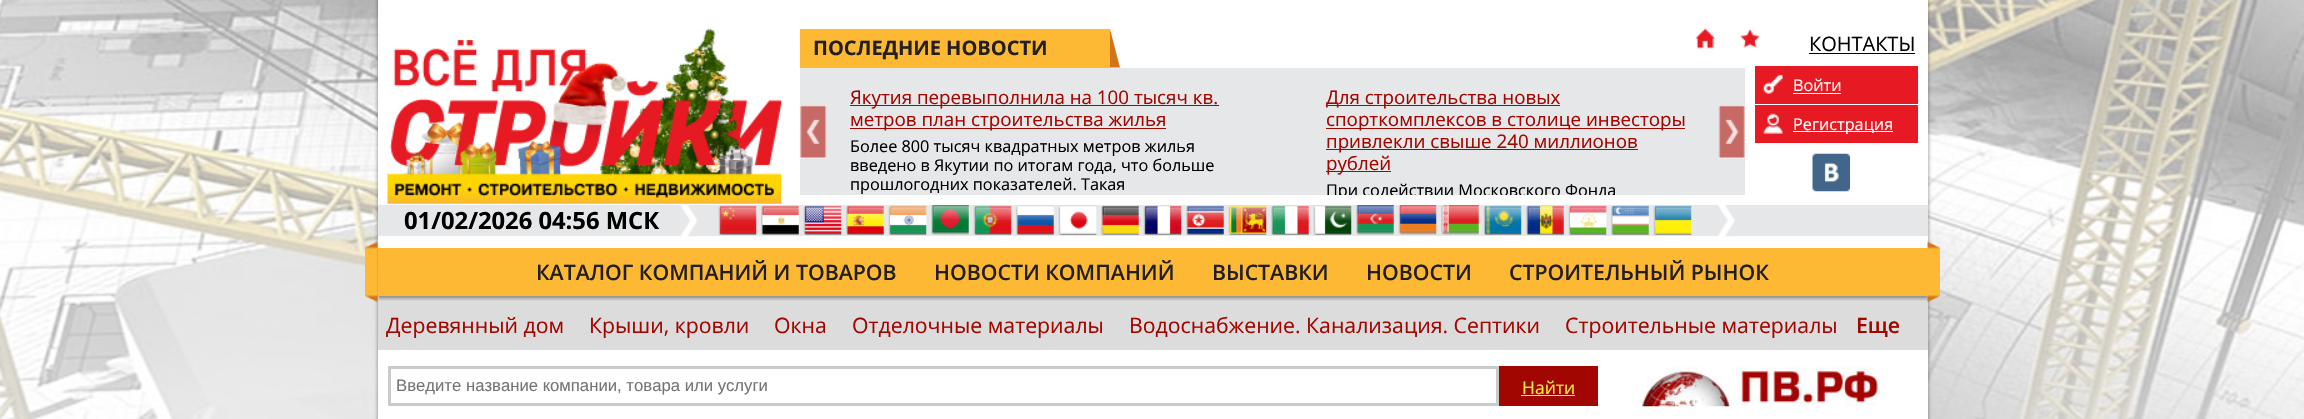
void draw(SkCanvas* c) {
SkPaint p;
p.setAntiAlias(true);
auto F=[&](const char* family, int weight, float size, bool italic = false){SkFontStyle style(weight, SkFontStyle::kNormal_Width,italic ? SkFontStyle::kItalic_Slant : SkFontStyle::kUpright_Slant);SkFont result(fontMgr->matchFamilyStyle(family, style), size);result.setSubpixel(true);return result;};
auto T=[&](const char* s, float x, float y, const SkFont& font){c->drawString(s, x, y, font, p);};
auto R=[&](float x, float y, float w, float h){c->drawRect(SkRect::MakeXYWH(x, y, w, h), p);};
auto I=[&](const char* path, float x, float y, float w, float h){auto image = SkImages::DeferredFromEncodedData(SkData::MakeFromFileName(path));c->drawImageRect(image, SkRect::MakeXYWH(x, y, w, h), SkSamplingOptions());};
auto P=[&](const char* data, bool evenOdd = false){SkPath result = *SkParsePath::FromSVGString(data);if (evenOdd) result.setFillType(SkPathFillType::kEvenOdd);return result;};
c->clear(0xffffffff);
I("1.png",0,0,2304,419);
p.setColor(0x99323232);
p.setMaskFilter(SkMaskFilter::MakeBlur(kNormal_SkBlurStyle, 2));
c->drawRect(SkRect::MakeXYWH(378,-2,1550,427),p);
p.setMaskFilter(nullptr);
p.setColor(0xffffffff);
R(378,0,1550,419);
I("2.png",387,28,395,176);
p.setColor(0xfffdb933);
R(800,29,310,39);
auto f1 = F("Open Sans",700,20);
p.setColor(0xff231f20);
T("ПОСЛЕДНИЕ НОВОСТИ",813,55,f1);
p.setColor(0xffd4741a);
c->drawPath(P("M1110 67.5v-38.5l10 38.5z"),p);
I("3.png",1695,28,20,21);
I("4.png",1740,29,20,19);
auto f2 = F("Open Sans",400,20);
p.setColor(0xff000000);
T("КОНТАКТЫ",1809,51,f2);
R(1809,53,106,1);
p.setColor(0xffe6e7e9);
R(800,68,945,127);
p.setColor(0xffa10600);
R(850,105,369,1);
auto f3 = F("Open Sans",400,18.75);
T("Якутия перевыполнила на 100 тысяч кв.",850,104,f3);
R(850,128,316,1);
T("метров план строительства жилья",850,126,f3);
auto f4 = F("Open Sans",400,16.25);
p.setColor(0xff000000);
T("Более 800 тысяч квадратных метров жилья",850,152,f4);
T("введено в Якутии по итогам года, что больше",850,171,f4);
T("прошлогодних показателей. Такая",850,190,f4);
p.setColor(0xffa10600);
R(1326,105,234,1);
T("Для строительства новых",1326,104,f3);
R(1326,128,359,1);
T("спорткомплексов в столице инвесторы",1326,126,f3);
R(1326,149,312,1);
T("привлекли свыше 240 миллионов",1326,148,f3);
R(1326,171,65,1);
T("рублей",1326,170,f3);
c->save();
c->clipRect(SkRect::MakeXYWH(1326,181,372,14));
p.setColor(0xff000000);
T("При содействии Московского Фонда",1326,196,f4);
c->restore();
I("5.png",800,105,27,54);
I("6.png",1718,105,27,54);
p.setColor(0xffe71a23);
R(1755,66,163,38);
I("7.png",1763,74,20,20);
p.setColor(0xffffffff);
T("Войти",1793,91,f4);
R(1793,93,48,1);
p.setColor(0xffe71a23);
R(1755,105,163,38);
I("8.png",1763,113,20,21);
p.setColor(0xffffffff);
R(1793,131,100,1);
T("Регистрация",1793,130,f4);
I("9.png",1812,153,38,39);
p.setColor(0xffe6e7e9);
R(378,205,1550,31);
auto f5 = F("Open Sans",700,23.75);
p.setColor(0xff000000);
T("01/02/2026 04:56 МСК",404,229,f5);
I("10.png",680,205,18,32);
I("11.png",718,205,39,30);
I("12.png",761,205,38,30);
I("13.png",803,205,39,30);
I("14.png",846,205,38,30);
I("15.png",888,205,39,30);
I("16.png",931,205,38,30);
I("17.png",973,205,39,30);
I("18.png",1016,205,38,30);
I("19.png",1058,205,39,30);
I("20.png",1101,205,38,30);
I("21.png",1143,205,39,30);
I("22.png",1186,205,38,30);
I("23.png",1228,205,39,30);
I("24.png",1271,205,38,30);
I("25.png",1313,205,39,30);
I("26.png",1356,205,38,30);
I("27.png",1398,205,39,30);
I("28.png",1441,205,38,30);
I("29.png",1483,205,39,30);
I("30.png",1526,205,38,30);
I("31.png",1568,205,39,30);
I("32.png",1611,205,38,30);
I("33.png",1653,205,39,30);
I("34.png",1717,205,18,32);
p.setColor(0xffdcdcdc);
R(378,299,1550,51);
p.setColor(0x80323232);
p.setMaskFilter(SkMaskFilter::MakeBlur(kNormal_SkBlurStyle, 1));
c->drawRect(SkRect::MakeXYWH(378,250,1550,49),p);
p.setMaskFilter(nullptr);
I("35.png",365,241,13,62);
p.setColor(0xfffdb933);
R(378,248,1550,48);
auto f6 = F("Open Sans",600,21.25);
p.setColor(0xff231f20);
T("КАТАЛОГ КОМПАНИЙ И ТОВАРОВ",536,280,f6);
T("НОВОСТИ КОМПАНИЙ",934,280,f6);
T("ВЫСТАВКИ",1212,280,f6);
T("НОВОСТИ",1366,280,f6);
T("СТРОИТЕЛЬНЫЙ РЫНОК",1509,280,f6);
I("36.png",1927,241,13,62);
auto f7 = F("Open Sans",400,21.25);
p.setColor(0xffa10600);
T("Деревянный дом",386,333,f7);
T("Крыши, кровли",589,333,f7);
T("Окна",774,333,f7);
T("Отделочные материалы",852,333,f7);
T("Водоснабжение. Канализация. Септики",1129,333,f7);
T("Строительные материалы",1565,333,f7);
T("Еще",1856,333,f6);
p.setStroke(true);
p.setStrokeWidth(3);
p.setColor(0xffc9cacc);
c->drawRect(SkRect::MakeXYWH(389.5,367.5,1108,37),p);
auto f8 = F("Liberation Sans",400,16.7);
p.setStroke(false);
p.setColor(0xff757575);
T("Введите название компании, товара или услуги",396,391,f8);
p.setColor(0xffa10600);
R(1499,366,99,40);
auto f9 = F("Open Sans",400,17.5);
p.setColor(0xfff6eb40);
T("Найти",1522,394,f9);
R(1521,395,54,1);
I("37.png",1636,366,250,41);
}
